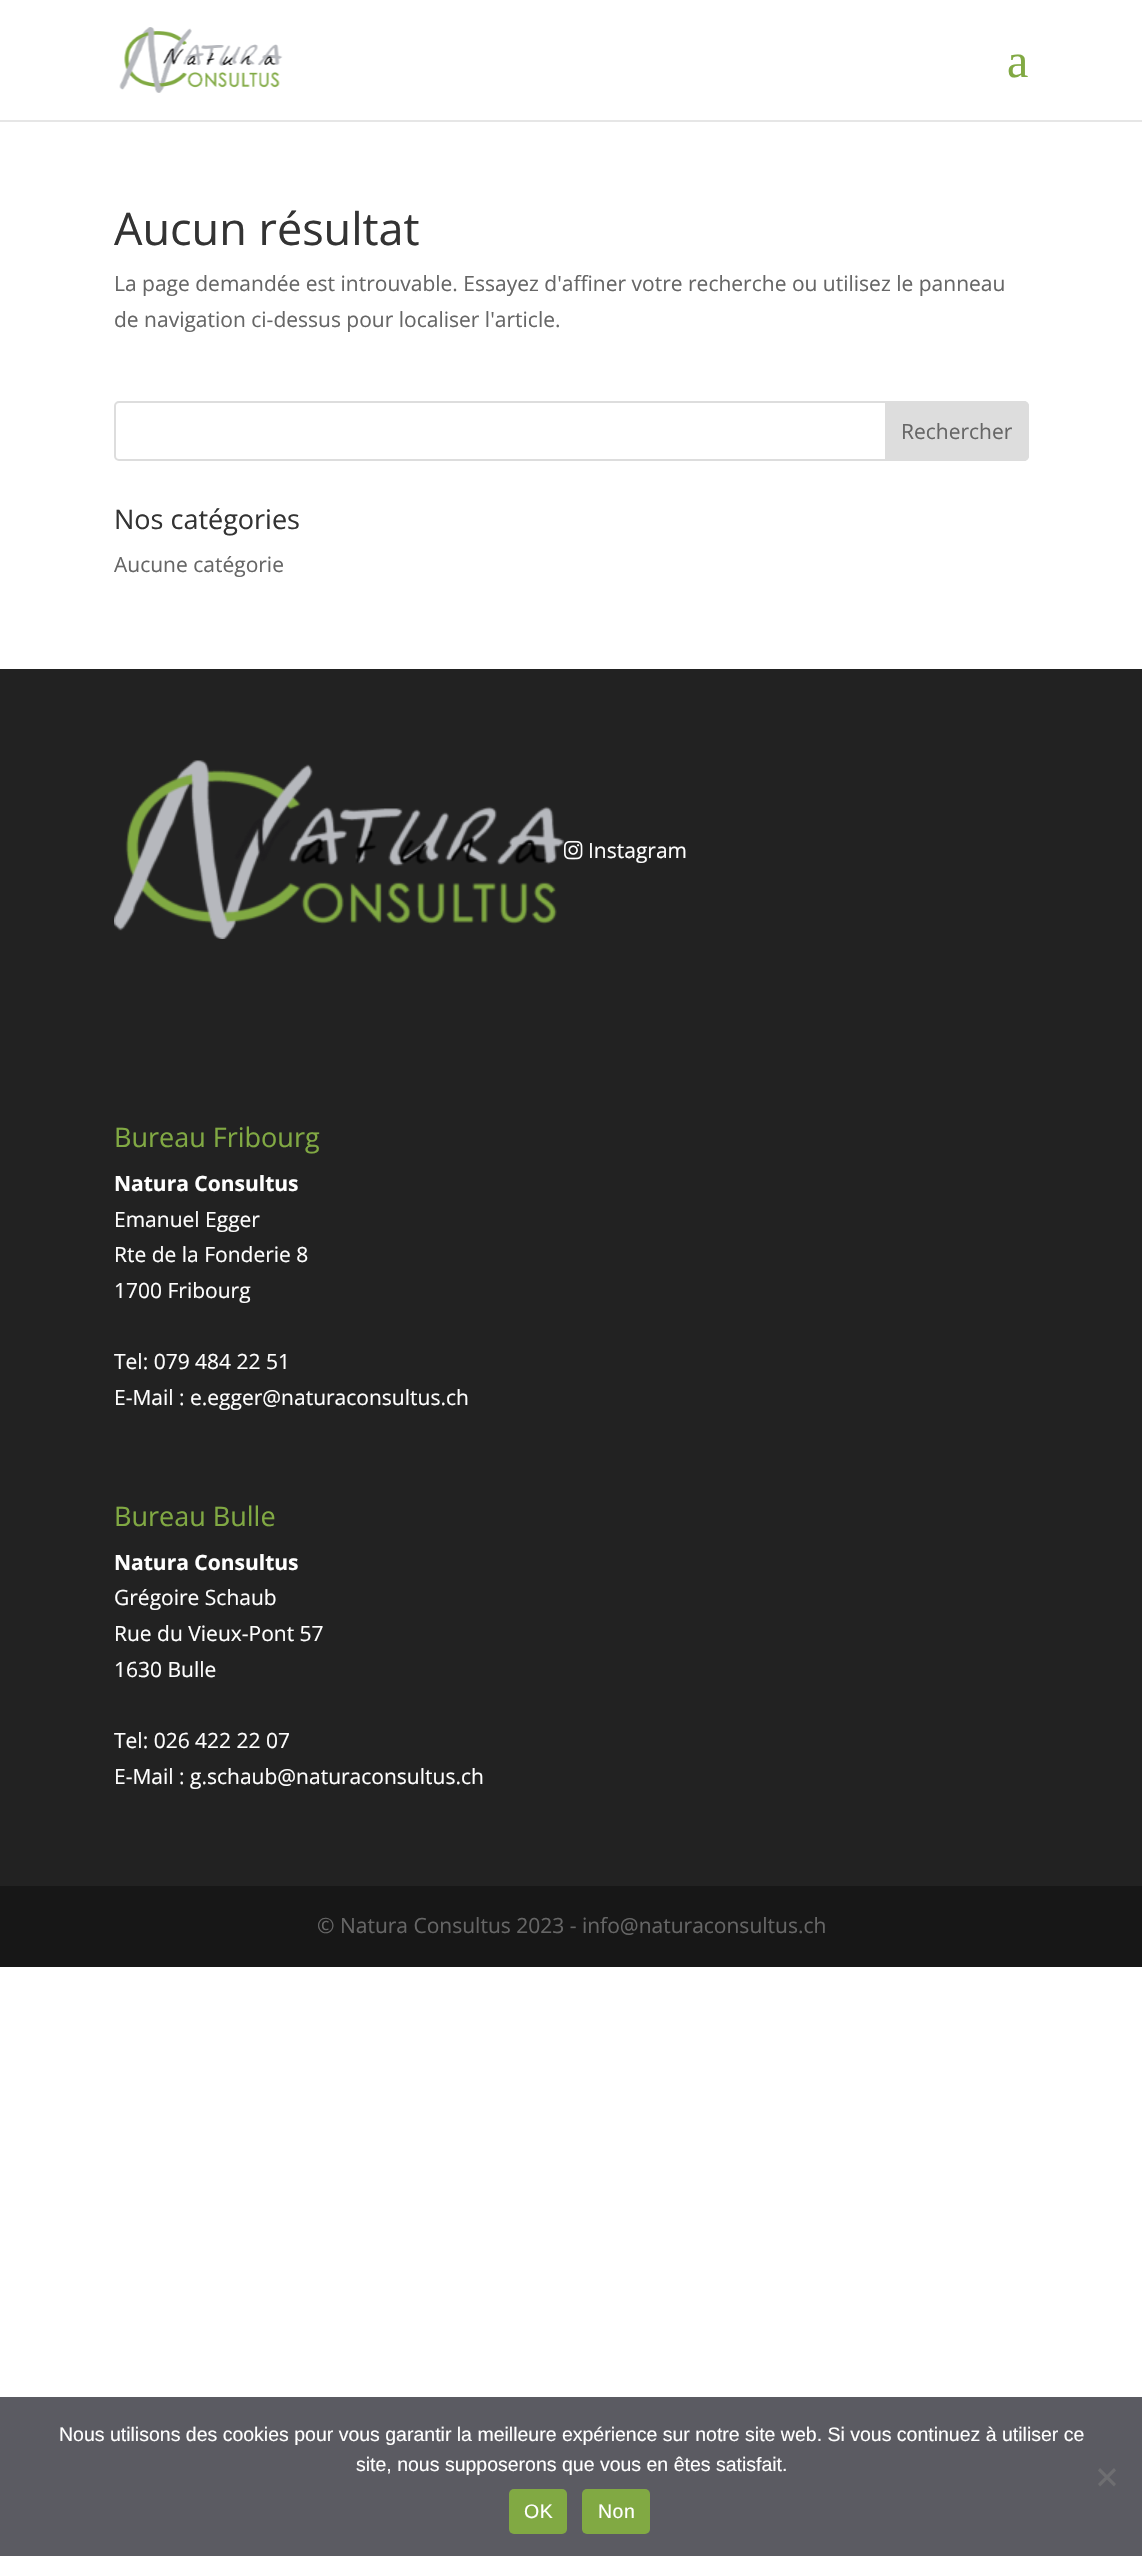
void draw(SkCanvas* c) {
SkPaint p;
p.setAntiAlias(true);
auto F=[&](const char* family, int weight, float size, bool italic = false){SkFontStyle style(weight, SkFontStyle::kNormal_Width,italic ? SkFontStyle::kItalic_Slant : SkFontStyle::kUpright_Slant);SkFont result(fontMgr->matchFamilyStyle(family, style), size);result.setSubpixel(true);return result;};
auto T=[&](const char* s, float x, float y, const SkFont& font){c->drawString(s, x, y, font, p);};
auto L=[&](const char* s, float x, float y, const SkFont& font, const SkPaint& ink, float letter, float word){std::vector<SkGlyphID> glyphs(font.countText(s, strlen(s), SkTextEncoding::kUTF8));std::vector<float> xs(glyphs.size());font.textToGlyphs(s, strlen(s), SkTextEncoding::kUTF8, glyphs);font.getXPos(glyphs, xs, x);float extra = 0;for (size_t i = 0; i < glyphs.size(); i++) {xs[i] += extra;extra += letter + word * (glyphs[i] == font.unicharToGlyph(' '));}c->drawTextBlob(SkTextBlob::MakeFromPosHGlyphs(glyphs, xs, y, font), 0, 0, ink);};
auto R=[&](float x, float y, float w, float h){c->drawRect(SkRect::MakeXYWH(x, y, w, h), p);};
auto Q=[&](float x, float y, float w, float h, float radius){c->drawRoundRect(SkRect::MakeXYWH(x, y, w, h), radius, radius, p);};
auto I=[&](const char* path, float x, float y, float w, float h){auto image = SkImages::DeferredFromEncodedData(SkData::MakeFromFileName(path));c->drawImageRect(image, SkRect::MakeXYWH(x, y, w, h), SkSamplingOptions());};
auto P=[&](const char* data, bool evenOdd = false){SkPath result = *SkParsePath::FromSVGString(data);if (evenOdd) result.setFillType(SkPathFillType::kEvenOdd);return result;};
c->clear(0xffffffff);
p.setColor(0xffe6e6e6);
R(0,120,1142,2);
I("1.png",119,27,164,66);
auto f1 = F("Liberation Serif",400,48);
p.setColor(0xff81a943);
T("a",1007,77,f1);
auto f2 = F("Open Sans",400,45);
p.setColor(0xff333333);
T("Aucun résultat",114,245,f2);
auto f3 = F("Open Sans",400,21);
p.setColor(0xff666666);
T("La page demandée est introuvable. Essayez d'affiner votre recherche ou utilisez le panneau",114,291,f3);
T("de navigation ci-dessus pour localiser l'article.",114,327,f3);
p.setStroke(true);
p.setStrokeWidth(2);
p.setColor(0xffdddddd);
c->drawRoundRect(SkRect::MakeXYWH(115,402,913,58),4,4,p);
p.setStroke(false);
c->drawPath(P("M886 402h138c2 0 4 2 4 4v50c0 2-2 4-4 4h-138z"),p);
p.setStroke(true);
c->drawPath(P("M886 402h138c2 0 4 2 4 4v50c0 2-2 4-4 4h-138z"),p);
p.setStroke(false);
p.setColor(0xff666666);
T("Rechercher",901,439,f3);
auto f4 = F("Open Sans",400,27);
p.setColor(0xff333333);
T("Nos catégories",114,529,f4);
p.setColor(0xff666666);
T("Aucune catégorie",114,572,f3);
p.setColor(0xff222222);
R(0,669,1142,1217);
I("2.png",114,760,450,179);
I("3.png",564,840,19,20);
p.setColor(0xffffffff);
T("Instagram",588,858,f3);
p.setColor(0xff81a943);
T("Bureau Fribourg",114,1147,f4);
auto f5 = F("Open Sans",700,21);
p.setColor(0xffffffff);
T("Natura Consultus",114,1191,f5);
T("Emanuel Egger",114,1227,f3);
T("Rte de la Fonderie 8",114,1262,f3);
T("1700 Fribourg",114,1298,f3);
T("Tel: 079 484 22 51",114,1369,f3);
T("E-Mail : e.egger@naturaconsultus.ch",114,1405,f3);
p.setColor(0xff81a943);
T("Bureau Bulle",114,1526,f4);
p.setColor(0xffffffff);
T("Natura Consultus",114,1570,f5);
T("Grégoire Schaub",114,1605,f3);
T("Rue du Vieux-Pont 57",114,1641,f3);
T("1630 Bulle",114,1677,f3);
T("Tel: 026 422 22 07",114,1748,f3);
T("E-Mail : g.schaub@naturaconsultus.ch",114,1784,f3);
p.setColor(0xff171717);
R(0,1886,1142,81);
p.setColor(0xff666666);
T("© Natura Consultus 2023 - info@naturaconsultus.ch",317,1933,f3);
p.setColor(0xff5b5b62);
R(0,2397,1142,159);
auto f6 = F("Liberation Sans",400,19.5);
p.setColor(0xffffffff);
T("Nous utilisons des cookies pour vous garantir la meilleure expérience sur notre site web. Si vous continuez à utiliser ce",59,2441,f6);
T("site, nous supposerons que vous en êtes satisfait.",356,2471,f6);
p.setColor(0xff6e6e71);
c->drawPath(P("M1114 2468l2 2.5l-16 16l-2-2.5z"),p);
c->drawPath(P("M1098 2470.5l2-2.5l16 16l-2 2.5z"),p);
p.setColor(0xff81a943);
Q(509,2489,58,45,5);
p.setColor(0xffffffff);
L("OK",524,2518,f6,p,.5,0);
p.setColor(0xff81a943);
Q(582,2489,68,45,5);
p.setColor(0xffffffff);
L("Non",598,2518,f6,p,.5,0);
}
